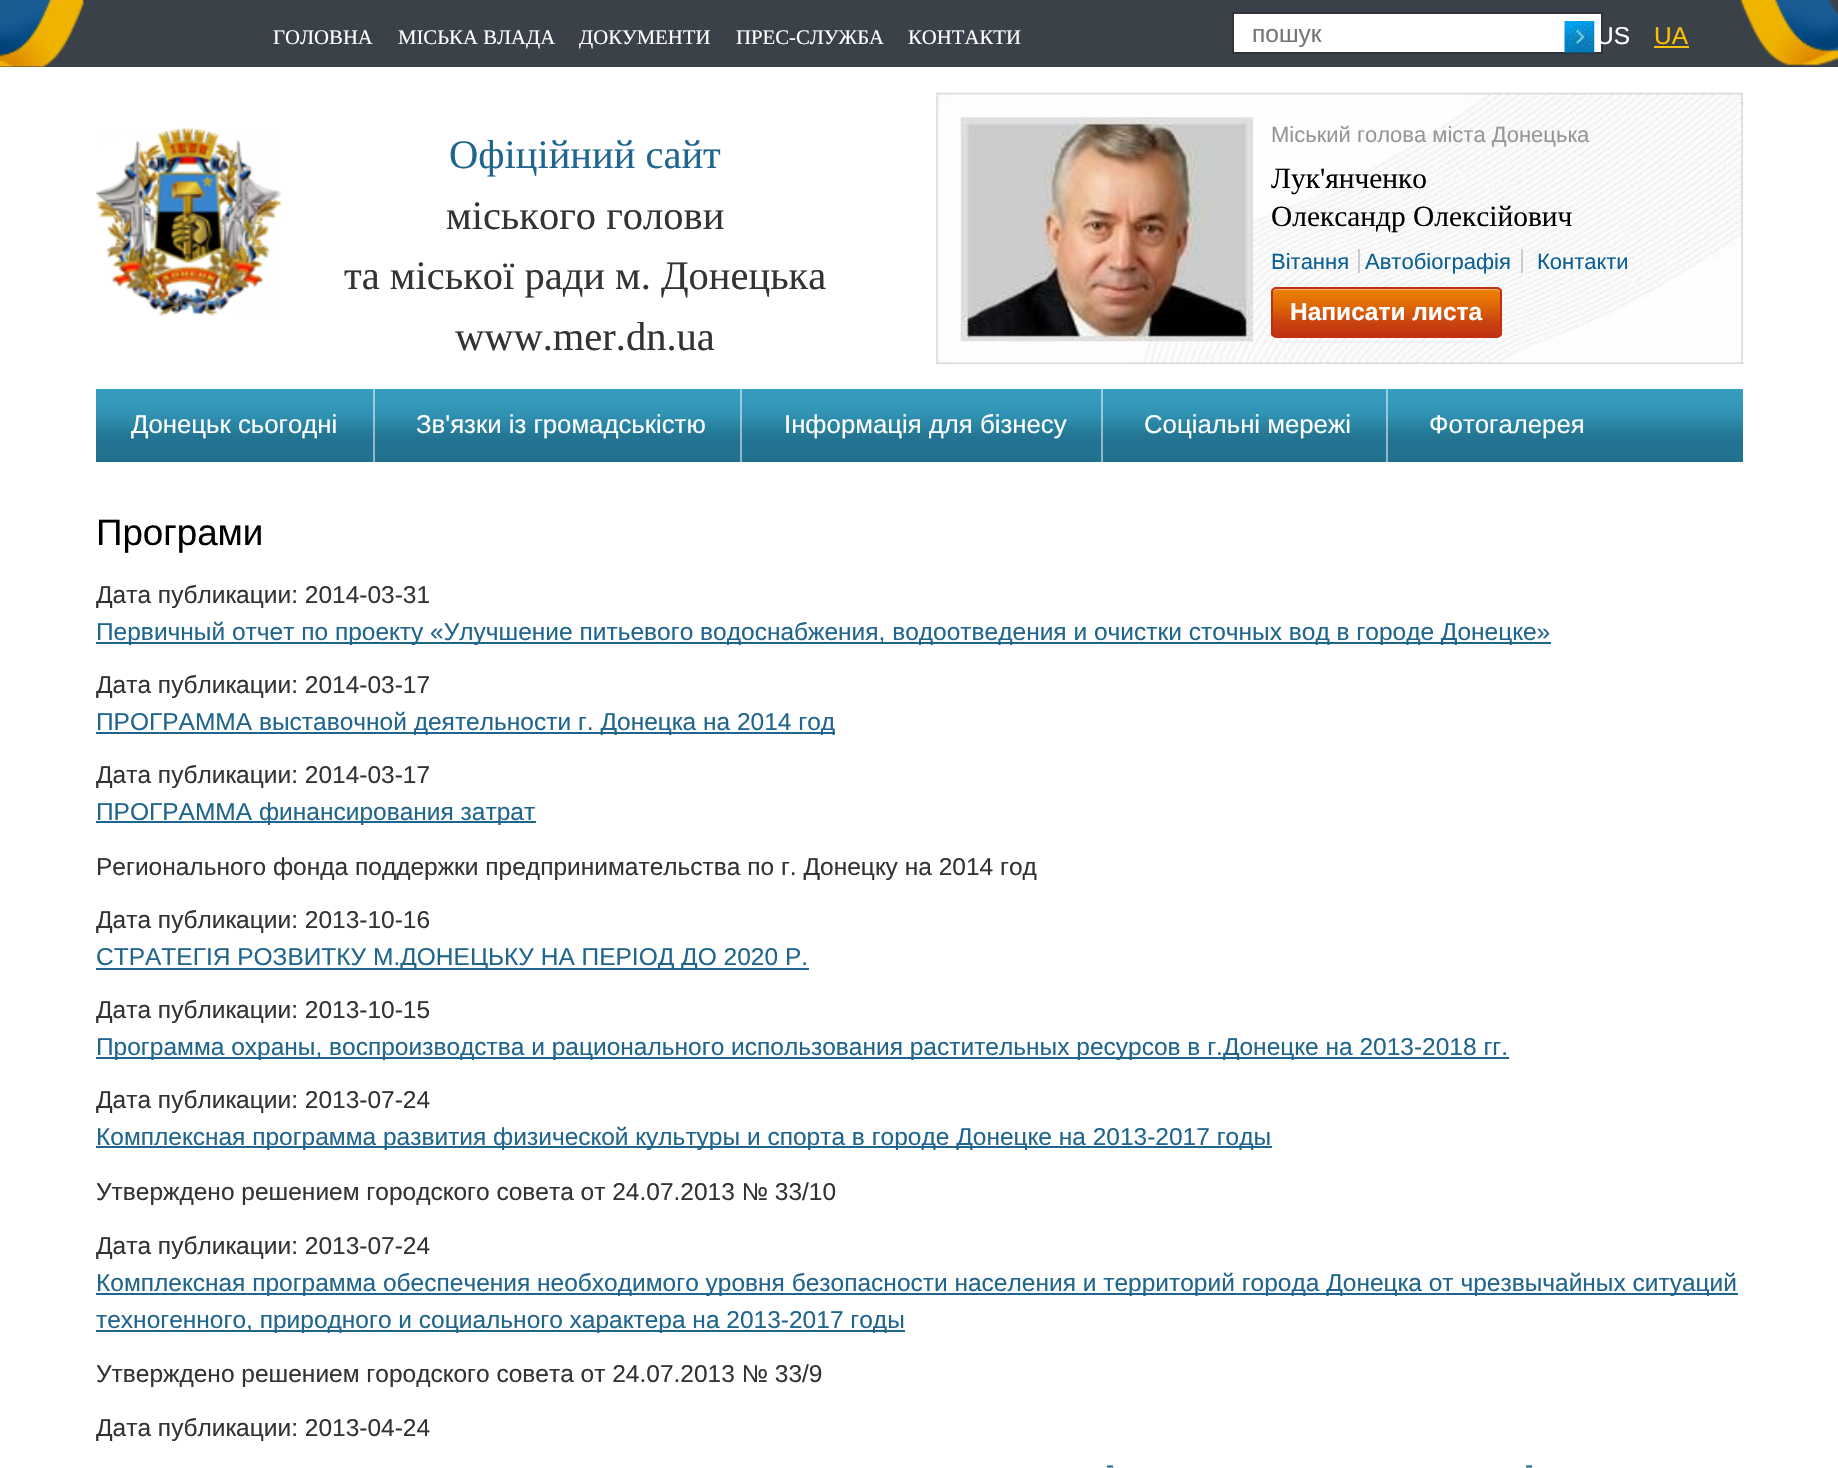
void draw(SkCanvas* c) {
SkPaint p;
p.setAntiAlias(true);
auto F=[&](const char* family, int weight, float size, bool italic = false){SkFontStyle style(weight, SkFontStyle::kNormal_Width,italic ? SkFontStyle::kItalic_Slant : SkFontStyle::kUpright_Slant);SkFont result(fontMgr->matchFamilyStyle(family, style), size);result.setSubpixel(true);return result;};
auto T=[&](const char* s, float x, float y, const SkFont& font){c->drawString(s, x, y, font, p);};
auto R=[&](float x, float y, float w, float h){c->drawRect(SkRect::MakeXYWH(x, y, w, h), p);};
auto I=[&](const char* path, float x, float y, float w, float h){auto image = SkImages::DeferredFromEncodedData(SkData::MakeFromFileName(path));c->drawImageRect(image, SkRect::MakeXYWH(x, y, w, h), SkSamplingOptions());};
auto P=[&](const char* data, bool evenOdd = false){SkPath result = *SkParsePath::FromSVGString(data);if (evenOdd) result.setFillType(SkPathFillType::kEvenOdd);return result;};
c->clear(0xffffffff);
p.setColor(0xff3a4148);
R(0,0,1838,67);
I("1.png",0,0,1838,67);
auto f1 = F("Liberation Serif",400,20.75);
p.setColor(0xffffffff);
T("ГОЛОВНА",273,44,f1);
T("МІСЬКА ВЛАДА",398,44,f1);
T("ДОКУМЕНТИ",579,44,f1);
T("ПРЕС-СЛУЖБА",736,44,f1);
T("КОНТАКТИ",908,44,f1);
c->drawRect(SkRect::MakeXYWH(1233,13,369,40),p);
p.setStroke(true);
p.setStrokeWidth(2);
p.setColor(0xff2e343a);
c->drawRect(SkRect::MakeXYWH(1233,13,369,40),p);
auto f2 = F("Liberation Sans",400,24.5);
p.setStroke(false);
p.setColor(0xff757575);
T("пошук",1252,42,f2);
I("2.png",1564,21,31,32);
p.setColor(0xffffffff);
T("US",1596,44,f2);
p.setColor(0xffffc001);
T("UA",1654,44,f2);
R(1654,46,35,2);
I("3.png",96,127,186,189);
auto f3 = F("Liberation Serif",400,40.5);
p.setColor(0xff20658d);
T("Офіційний сайт",449,168,f3);
p.setColor(0xff333333);
T("міського голови",446,229,f3);
T("та міської ради м. Донецька",344,289,f3);
T("www.mer.dn.ua",455,350,f3);
I("4.png",936,92,807,272);
I("5.png",960,117,293,225);
auto f4 = F("Liberation Sans",400,22);
p.setColor(0xff969696);
T("Міський голова міста Донецька",1271,142,f4);
auto f5 = F("Liberation Serif",400,29.4);
p.setColor(0xff000000);
T("Лук'янченко",1271,188,f5);
T("Олександр Олексійович",1271,226,f5);
p.setColor(0xff0a5f94);
T("Вітання",1271,269,f4);
p.setColor(0xffcdcad0);
R(1358,249,2,24);
p.setColor(0xff0a5f94);
T("Автобіографія",1365,269,f4);
p.setColor(0xffcdcad0);
R(1521,249,2,24);
p.setColor(0xff0a5f94);
T("Контакти",1537,269,f4);
c->save();
c->clipPath(P("M1276 287h221c3 0 5 2 5 5v41c0 3-2 5-5 5h-221c-3 0-5-2-5-5v-41c0-3 2-5 5-5z"),true);
{
const SkColor colors[] = {0xffed8103,0xffdf6908,0xffcc470e,0xffc03112};
const float stops[] = {0,.35,.66,1};
const SkPoint ends[] = {{1386,289}, {1386,336}};
p.setShader(SkGradientShader::MakeLinear(ends, colors, stops, 4, SkTileMode::kClamp));
p.setAlpha(255);
}
R(1271,289,231,47);
c->restore();
p.setShader(nullptr);
p.setColor(0x80e1e1e1);
c->drawPath(P("M1276 290h220c2 0 4 2 4 4c0-3-1-5-4-5h-220c-3 0-4 2-4 5c0-2 2-4 4-4z"),p);
p.setStroke(true);
p.setColor(0xffc03112);
c->drawRoundRect(SkRect::MakeXYWH(1272,288,229,49),4,4,p);
auto f6 = F("Liberation Sans",700,24.5);
p.setStroke(false);
p.setColor(0xffffffff);
T("Написати листа",1290,320,f6);
{
const SkColor colors[] = {0xff389fc2,0xff3193b4,0xff237593,0xff206f8d};
const float stops[] = {0,.35,.66,1};
const SkPoint ends[] = {{920,388}, {920,462}};
p.setShader(SkGradientShader::MakeLinear(ends, colors, stops, 4, SkTileMode::kClamp));
p.setAlpha(255);
}
R(96,389,1647,73);
{
const SkColor colors[] = {0xff9ccfe1,0xff98c9da,0xff91bac9,0xff90b7c6};
const float stops[] = {0,.35,.66,1};
const SkPoint ends[] = {{920,388}, {920,462}};
p.setShader(SkGradientShader::MakeLinear(ends, colors, stops, 4, SkTileMode::kClamp));
p.setAlpha(255);
}
R(1386,389,2,73);
R(1101,389,2,73);
R(740,389,2,73);
R(373,389,2,73);
auto f7 = F("Liberation Sans",400,25.75);
p.setShader(nullptr);
p.setColor(0xffffffff);
T("Донецьк сьогодні",131,433,f7);
T("Зв'язки із громадськістю",416,433,f7);
T("Інформація для бізнесу",784,433,f7);
T("Соціальні мережі",1144,433,f7);
T("Фотогалерея",1429,433,f7);
auto f8 = F("Liberation Sans",400,36.75);
p.setColor(0xff000000);
T("Програми",96,545,f8);
p.setColor(0xff333333);
T("Дата публикации: 2014-03-31",96,603,f2);
p.setColor(0xff20658d);
R(96,642,1455,2);
T("Первичный отчет по проекту «Улучшение питьевого водоснабжения, водоотведения и очистки сточных вод в городе Донецке»",96,640,f2);
p.setColor(0xff333333);
T("Дата публикации: 2014-03-17",96,693,f2);
p.setColor(0xff20658d);
R(96,732,739,2);
T("ПРОГРАММА выставочной деятельности г. Донецка на 2014 год",96,730,f2);
p.setColor(0xff333333);
T("Дата публикации: 2014-03-17",96,783,f2);
p.setColor(0xff20658d);
R(96,821,440,2);
T("ПРОГРАММА финансирования затрат",96,820,f2);
p.setColor(0xff333333);
T("Регионального фонда поддержки предпринимательства по г. Донецку на 2014 год",96,875,f2);
T("Дата публикации: 2013-10-16",96,928,f2);
p.setColor(0xff20658d);
R(96,968,713,2);
T("СТРАТЕГІЯ РОЗВИТКУ М.ДОНЕЦЬКУ НА ПЕРIОД ДО 2020 Р.",96,965,f2);
p.setColor(0xff333333);
T("Дата публикации: 2013-10-15",96,1018,f2);
p.setColor(0xff20658d);
R(96,1057,1413,2);
T("Программа охраны, воспроизводства и рационального использования растительных ресурсов в г.Донецке на 2013-2018 гг.",96,1055,f2);
p.setColor(0xff333333);
T("Дата публикации: 2013-07-24",96,1108,f2);
p.setColor(0xff20658d);
R(96,1146,1176,2);
T("Комплексная программа развития физической культуры и спорта в городе Донецке на 2013-2017 годы",96,1145,f2);
p.setColor(0xff333333);
T("Утверждено решением городского совета от 24.07.2013 № 33/10",96,1200,f2);
T("Дата публикации: 2013-07-24",96,1254,f2);
p.setColor(0xff20658d);
R(96,1293,1642,2);
T("Комплексная программа обеспечения необходимого уровня безопасности населения и территорий города Донецка от чрезвычайных ситуаций",96,1291,f2);
R(96,1330,809,2);
T("техногенного, природного и социального характера на 2013-2017 годы",96,1328,f2);
p.setColor(0xff333333);
T("Утверждено решением городского совета от 24.07.2013 № 33/9",96,1382,f2);
T("Дата публикации: 2013-04-24",96,1436,f2);
p.setColor(0xff20658d);
T("-",1106,1473,f2);
T("-",1525,1473,f2);
}
